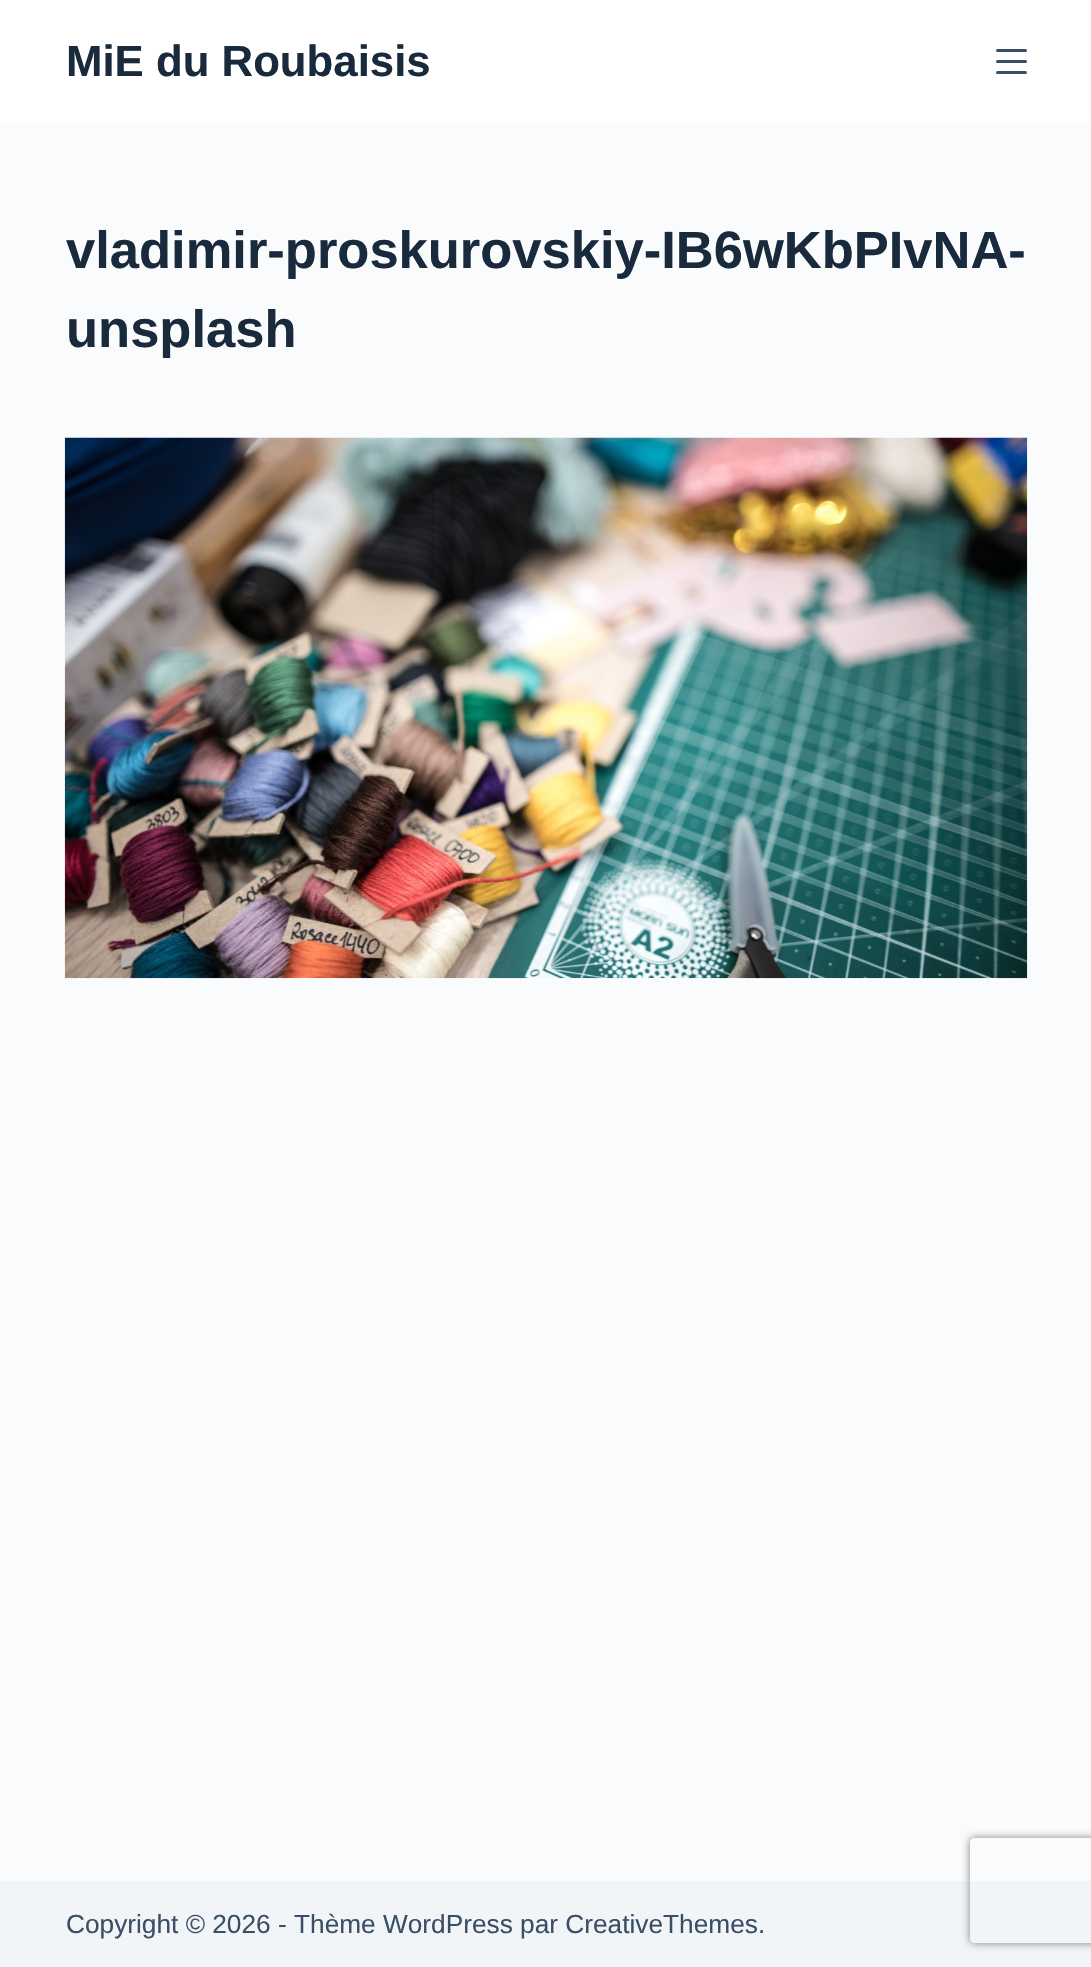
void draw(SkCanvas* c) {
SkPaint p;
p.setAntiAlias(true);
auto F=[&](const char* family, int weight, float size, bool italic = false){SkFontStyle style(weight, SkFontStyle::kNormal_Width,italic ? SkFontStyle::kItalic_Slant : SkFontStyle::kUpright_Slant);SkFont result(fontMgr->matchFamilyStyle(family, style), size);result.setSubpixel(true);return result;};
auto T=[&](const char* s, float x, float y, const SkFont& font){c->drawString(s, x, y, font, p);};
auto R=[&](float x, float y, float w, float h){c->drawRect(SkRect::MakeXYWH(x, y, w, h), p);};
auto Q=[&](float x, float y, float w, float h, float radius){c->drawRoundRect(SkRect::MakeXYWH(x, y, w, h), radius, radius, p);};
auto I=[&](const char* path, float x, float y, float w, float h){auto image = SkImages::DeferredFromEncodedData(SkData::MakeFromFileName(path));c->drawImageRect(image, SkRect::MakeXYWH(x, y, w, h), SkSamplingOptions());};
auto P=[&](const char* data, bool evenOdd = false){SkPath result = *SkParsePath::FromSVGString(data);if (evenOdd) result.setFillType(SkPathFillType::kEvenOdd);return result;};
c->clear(0xfffafbfc);
p.setColor(0xffffffff);
R(0,0,1091,123);
auto f1 = F("Liberation Sans",700,43.75);
p.setColor(0xff192a3d);
T("MiE du Roubaisis",66,76,f1);
p.setColor(0xff3a4f66);
Q(996,49,31,3,1.5);
Q(996,60,31,3,1.5);
Q(996,71,31,3,1.5);
auto f2 = F("Liberation Sans",700,52.5);
p.setColor(0xff192a3d);
T("vladimir-proskurovskiy-IB6wKbPIvNA-",66,268,f2);
T("unsplash",66,347,f2);
I("1.png",64,437,964,542);
p.setColor(0xfff2f5f7);
R(0,1881,1091,86);
auto f3 = F("Liberation Sans",400,26.25);
p.setColor(0xff3a4f66);
T("Copyright © 2026 - Thème WordPress par CreativeThemes.",66,1933,f3);
c->save();
c->clipPath(P("M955 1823h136v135h-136zm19 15h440c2 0 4 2 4 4v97c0 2-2 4-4 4h-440c-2 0-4-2-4-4v-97c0-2 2-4 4-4z",true),true);
p.setColor(0xff808080);
p.setMaskFilter(SkMaskFilter::MakeBlur(kNormal_SkBlurStyle, 4.5));
c->drawRoundRect(SkRect::MakeXYWH(970,1838,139,105),4,4,p);
p.setMaskFilter(nullptr);
c->restore();
}
